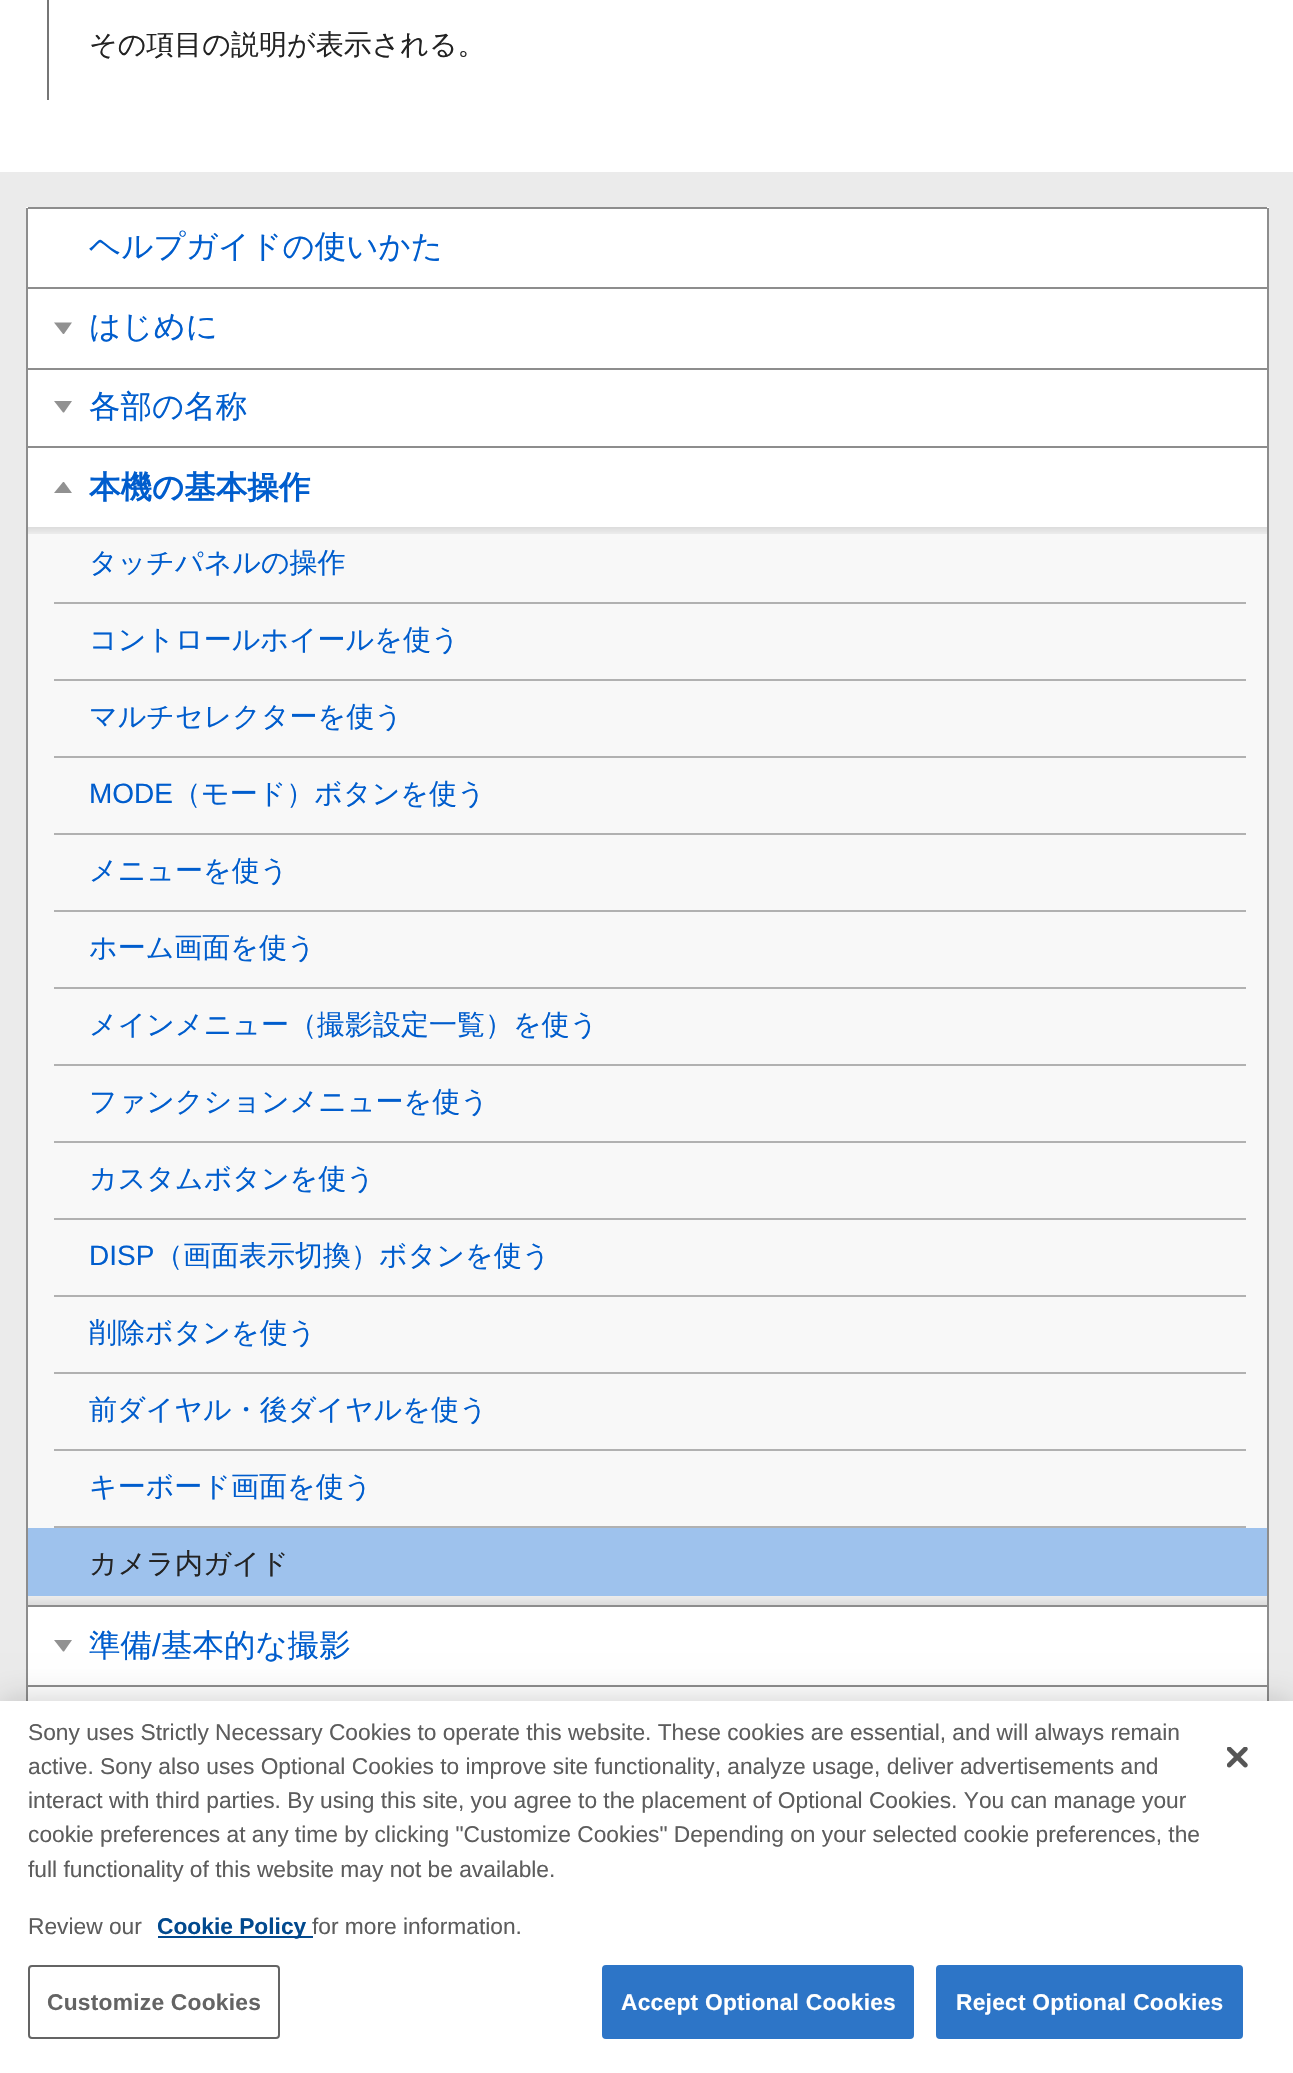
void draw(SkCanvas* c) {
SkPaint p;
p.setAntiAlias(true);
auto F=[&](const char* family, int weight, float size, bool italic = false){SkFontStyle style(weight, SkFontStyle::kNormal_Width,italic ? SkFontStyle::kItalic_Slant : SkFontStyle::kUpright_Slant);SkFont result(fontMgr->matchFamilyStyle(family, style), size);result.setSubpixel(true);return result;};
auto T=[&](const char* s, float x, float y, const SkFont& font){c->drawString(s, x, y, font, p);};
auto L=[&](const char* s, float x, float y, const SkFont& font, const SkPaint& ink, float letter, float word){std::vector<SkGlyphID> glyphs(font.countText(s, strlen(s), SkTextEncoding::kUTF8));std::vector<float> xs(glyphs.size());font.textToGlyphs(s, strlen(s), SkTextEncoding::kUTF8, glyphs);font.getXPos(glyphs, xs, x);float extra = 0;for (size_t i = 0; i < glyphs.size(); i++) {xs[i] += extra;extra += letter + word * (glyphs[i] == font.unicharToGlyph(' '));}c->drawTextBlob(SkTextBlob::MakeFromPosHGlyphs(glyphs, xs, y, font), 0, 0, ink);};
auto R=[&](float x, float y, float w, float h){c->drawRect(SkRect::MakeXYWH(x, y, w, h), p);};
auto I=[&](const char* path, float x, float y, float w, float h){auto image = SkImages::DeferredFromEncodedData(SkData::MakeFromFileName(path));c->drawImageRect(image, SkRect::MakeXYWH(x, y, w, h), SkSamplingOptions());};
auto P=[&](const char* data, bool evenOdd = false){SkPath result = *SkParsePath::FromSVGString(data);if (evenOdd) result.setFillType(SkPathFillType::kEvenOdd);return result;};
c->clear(0xffffffff);
p.setColor(0xff767676);
R(47,0,2,100);
auto f1 = F("WenQuanYi Zen Hei",500,28);
p.setColor(0xff232323);
T("その項目の説明が表示される。",89,54,f1);
p.setColor(0xffebebeb);
R(0,172,1293,1529);
p.setColor(0xffffffff);
R(26,207,1243,1494);
p.setColor(0xff8d8d8d);
R(28,207,1239,2);
R(1267,208,2,79);
R(26,208,2,79);
auto f2 = F("WenQuanYi Zen Hei",500,31.5);
p.setColor(0xff005dcd);
T("ヘルプガイドの使いかた",89,257,f2);
p.setColor(0xff8d8d8d);
R(26,287,1243,2);
R(1267,287,2,81);
R(26,287,2,81);
p.setColor(0xff919191);
c->drawPath(P("M54 322.5l9 11.5h1l8-11.5z"),p);
p.setColor(0xff005dcd);
T("はじめに",89,337,f2);
p.setColor(0xff8d8d8d);
R(26,368,1243,2);
R(1267,368,2,78);
R(26,368,2,78);
p.setColor(0xff919191);
c->drawPath(P("M54 401l9 11.5h1l8-11.5z"),p);
p.setColor(0xff005dcd);
T("各部の名称",89,417,f2);
p.setColor(0xff8d8d8d);
R(26,446,1243,2);
R(1267,446,2,1159);
R(26,446,2,1159);
p.setColor(0xff919191);
c->drawPath(P("M54 493l9-11h1l8 11z"),p);
auto f3 = F("WenQuanYi Zen Hei",700,31.5);
p.setColor(0xff005dcd);
T("本機の基本操作",89,498,f3);
p.setColor(0xfff8f8f8);
R(28,534,1239,994);
{
const SkColor colors[] = {0xffdcdcdc,0xffececec};
const float stops[] = {0,1};
const SkPoint ends[] = {{648,527}, {648,534}};
p.setShader(SkGradientShader::MakeLinear(ends, colors, stops, 2, SkTileMode::kClamp));
p.setAlpha(255);
}
R(28,527,1239,7);
p.setShader(nullptr);
p.setColor(0xffb1b1b1);
R(54,602,1192,2);
p.setColor(0xff005dcd);
T("タッチパネルの操作",89,572,f1);
p.setColor(0xffb1b1b1);
R(54,679,1192,2);
p.setColor(0xff005dcd);
T("コントロールホイールを使う",89,649,f1);
p.setColor(0xffb1b1b1);
R(54,756,1192,2);
p.setColor(0xff005dcd);
T("マルチセレクターを使う",89,726,f1);
p.setColor(0xffb1b1b1);
R(54,833,1192,2);
auto f4 = F("Liberation Sans",400,28);
p.setColor(0xff005dcd);
T("MODE",89,803,f4);
T("（モード）ボタンを使う",173,803,f1);
p.setColor(0xffb1b1b1);
R(54,910,1192,2);
p.setColor(0xff005dcd);
T("メニューを使う",89,880,f1);
p.setColor(0xffb1b1b1);
R(54,987,1192,2);
p.setColor(0xff005dcd);
T("ホーム画面を使う",89,957,f1);
p.setColor(0xffb1b1b1);
R(54,1064,1192,2);
p.setColor(0xff005dcd);
T("メインメニュー（撮影設定一覧）を使う",89,1034,f1);
p.setColor(0xffb1b1b1);
R(54,1141,1192,2);
p.setColor(0xff005dcd);
T("ファンクションメニューを使う",89,1111,f1);
p.setColor(0xffb1b1b1);
R(54,1218,1192,2);
p.setColor(0xff005dcd);
T("カスタムボタンを使う",89,1188,f1);
p.setColor(0xffb1b1b1);
R(54,1295,1192,2);
p.setColor(0xff005dcd);
T("DISP",89,1265,f4);
T("（画面表示切換）ボタンを使う",155,1265,f1);
p.setColor(0xffb1b1b1);
R(54,1372,1192,2);
p.setColor(0xff005dcd);
T("削除ボタンを使う",89,1342,f1);
p.setColor(0xffb1b1b1);
R(54,1449,1192,2);
p.setColor(0xff005dcd);
T("前ダイヤル・後ダイヤルを使う",89,1419,f1);
p.setColor(0xffb1b1b1);
R(54,1526,1192,2);
p.setColor(0xff005dcd);
T("キーボード画面を使う",89,1496,f1);
p.setColor(0xff9ec2ed);
R(28,1528,1239,68);
p.setColor(0xff232323);
T("カメラ内ガイド",89,1573,f1);
{
const SkColor colors[] = {0xffececec,0xffdcdcdc};
const float stops[] = {0,1};
const SkPoint ends[] = {{648,1596}, {648,1605}};
p.setShader(SkGradientShader::MakeLinear(ends, colors, stops, 2, SkTileMode::kClamp));
p.setAlpha(255);
}
R(28,1596,1239,9);
p.setShader(nullptr);
p.setColor(0xff8d8d8d);
R(26,1605,1243,2);
R(1267,1605,2,80);
R(26,1605,2,80);
p.setColor(0xff919191);
c->drawPath(P("M54 1640l9 11.5h1l8-11.5z"),p);
p.setColor(0xff005dcd);
T("準備",89,1656,f2);
auto f5 = F("Liberation Sans",400,31.5);
T("/",152,1656,f5);
T("基本的な撮影",161,1656,f2);
p.setColor(0xff8d8d8d);
R(26,1685,1243,2);
R(1267,1685,2,16);
R(26,1685,2,16);
p.setColor(0x33000000);
p.setMaskFilter(SkMaskFilter::MakeBlur(kNormal_SkBlurStyle, 16));
c->drawRect(SkRect::MakeXYWH(0,1701,1293,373),p);
p.setMaskFilter(nullptr);
p.setColor(0xffffffff);
R(0,1701,1293,372);
auto f6 = F("Liberation Sans",400,22.75);
p.setColor(0xff5d5d5d);
T("Sony uses Strictly Necessary Cookies to operate this website. These cookies are essential, and will always remain",28,1740,f6);
T("active. Sony also uses Optional Cookies to improve site functionality, analyze usage, deliver advertisements and",28,1774,f6);
T("interact with third parties. By using this site, you agree to the placement of Optional Cookies. You can manage your",28,1808,f6);
T("cookie preferences at any time by clicking \"Customize Cookies\" Depending on your selected cookie preferences, the",28,1842,f6);
T("full functionality of this website may not be available.",28,1877,f6);
T("Review our",28,1934,f6);
p.setColor(0xff01498e);
R(158,1936,155,2);
auto f7 = F("Liberation Sans",700,22.75);
T("Cookie Policy",157,1934,f7);
p.setColor(0xff5d5d5d);
T("for more information.",312,1934,f6);
p.setStroke(true);
p.setStrokeWidth(2);
p.setColor(0xff646464);
c->drawRoundRect(SkRect::MakeXYWH(29,1966,250,72),3,3,p);
p.setStroke(false);
L("Customize Cookies",47,2010,f7,p,.25,0);
p.setColor(0xff2d75c7);
c->drawRoundRect(SkRect::MakeXYWH(603,1966,310,72),3,3,p);
p.setStroke(true);
c->drawRoundRect(SkRect::MakeXYWH(603,1966,310,72),3,3,p);
p.setStroke(false);
p.setColor(0xffffffff);
L("Accept Optional Cookies",621,2010,f7,p,.25,0);
p.setColor(0xff2d75c7);
c->drawRoundRect(SkRect::MakeXYWH(937,1966,305,72),3,3,p);
p.setStroke(true);
c->drawRoundRect(SkRect::MakeXYWH(937,1966,305,72),3,3,p);
p.setStroke(false);
p.setColor(0xffffffff);
L("Reject Optional Cookies",956,2010,f7,p,.25,0);
I("1.png",1227,1747,21,21);
}
